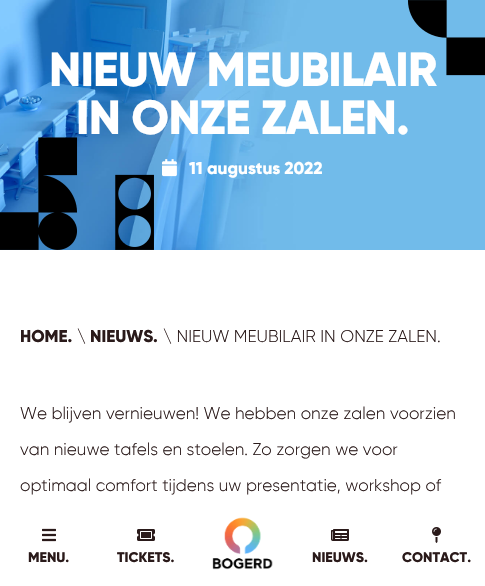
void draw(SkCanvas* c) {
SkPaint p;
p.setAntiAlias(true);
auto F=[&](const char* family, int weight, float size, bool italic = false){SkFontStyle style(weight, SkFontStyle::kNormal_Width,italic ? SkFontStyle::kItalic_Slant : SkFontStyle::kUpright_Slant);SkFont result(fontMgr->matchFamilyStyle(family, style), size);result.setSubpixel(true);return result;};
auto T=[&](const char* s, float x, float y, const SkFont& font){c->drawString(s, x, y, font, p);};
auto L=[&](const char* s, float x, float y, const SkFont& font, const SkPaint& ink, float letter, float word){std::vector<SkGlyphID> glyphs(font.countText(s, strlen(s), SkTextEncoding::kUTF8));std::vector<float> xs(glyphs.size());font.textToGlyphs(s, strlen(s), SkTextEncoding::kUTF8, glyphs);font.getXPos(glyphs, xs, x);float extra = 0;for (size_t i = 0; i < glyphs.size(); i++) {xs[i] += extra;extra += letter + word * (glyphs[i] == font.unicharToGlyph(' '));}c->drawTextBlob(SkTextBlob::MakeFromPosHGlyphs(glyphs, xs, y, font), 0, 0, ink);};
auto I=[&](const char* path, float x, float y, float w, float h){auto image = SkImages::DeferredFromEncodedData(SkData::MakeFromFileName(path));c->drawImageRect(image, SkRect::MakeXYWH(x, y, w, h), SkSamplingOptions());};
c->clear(0xffffffff);
I("1.png",0,0,485,250);
I("2.png",407,0,78,76);
auto f1 = F("Gilroy",800,48);
p.setColor(0xffffffff);
L("NIEUW MEUBILAIR",49,86,f1,p,-.75,0);
L("IN ONZE ZALEN.",76,134,f1,p,-.75,0);
I("3.png",162,159,15,18);
auto f2 = F("Gilroy",800,17);
T("11 augustus 2022",189,174,f2);
I("4.png",0,137,154,113);
p.setColor(0xff2a1a1a);
T("HOME.",20,342,f2);
auto f3 = F("Gilroy",300,17);
T("\\",77,342,f3);
T("NIEUWS.",90,342,f2);
T("\\ NIEUW MEUBILAIR IN ONZE ZALEN.",163,342,f3);
T("We blijven vernieuwen! We hebben onze zalen voorzien",20,419,f3);
T("van nieuwe tafels en stoelen. Zo zorgen we voor",20,455,f3);
T("optimaal comfort tijdens uw presentatie, workshop of",20,491,f3);
I("5.png",42,528,14,14);
auto f4 = F("Gilroy",800,14);
T("MENU.",28,562,f4);
I("6.png",137,529,18,12);
T("TICKETS.",117,562,f4);
I("7.png",212,517,61,53);
I("8.png",331,529,18,12);
T("NIEUWS.",312,562,f4);
I("9.png",432,527,9,16);
T("CONTACT.",402,562,f4);
}
